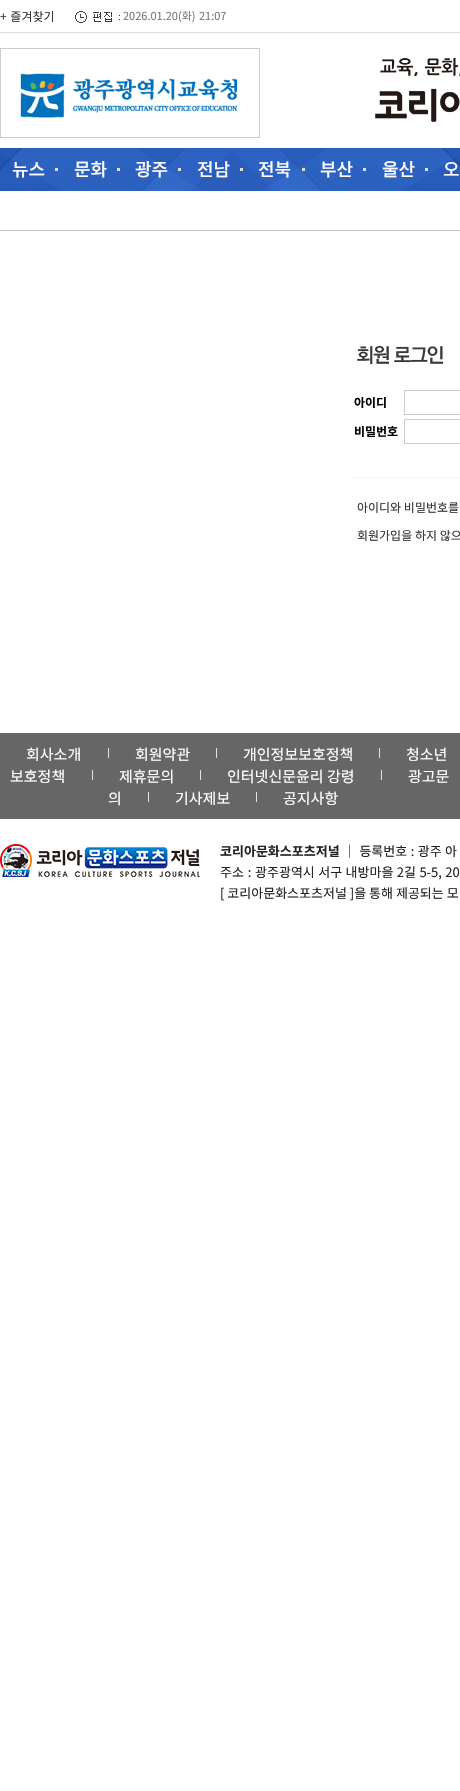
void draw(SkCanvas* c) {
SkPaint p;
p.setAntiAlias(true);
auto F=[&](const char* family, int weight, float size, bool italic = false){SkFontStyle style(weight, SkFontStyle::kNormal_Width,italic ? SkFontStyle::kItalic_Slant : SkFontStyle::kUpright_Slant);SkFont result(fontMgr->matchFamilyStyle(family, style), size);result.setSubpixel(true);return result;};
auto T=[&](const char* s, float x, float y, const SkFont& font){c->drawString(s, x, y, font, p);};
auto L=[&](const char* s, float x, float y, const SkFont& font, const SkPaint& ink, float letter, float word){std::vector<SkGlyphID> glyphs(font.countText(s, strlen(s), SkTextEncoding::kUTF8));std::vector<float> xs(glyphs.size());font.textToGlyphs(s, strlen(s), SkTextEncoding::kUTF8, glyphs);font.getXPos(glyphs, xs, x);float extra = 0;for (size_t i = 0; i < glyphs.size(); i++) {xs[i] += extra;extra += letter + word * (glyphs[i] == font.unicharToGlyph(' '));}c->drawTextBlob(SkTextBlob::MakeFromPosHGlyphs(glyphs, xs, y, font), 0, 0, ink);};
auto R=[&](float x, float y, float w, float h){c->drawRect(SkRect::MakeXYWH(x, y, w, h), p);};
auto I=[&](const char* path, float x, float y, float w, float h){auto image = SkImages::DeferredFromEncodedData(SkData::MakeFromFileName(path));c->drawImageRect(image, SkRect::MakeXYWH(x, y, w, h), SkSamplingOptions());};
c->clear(0xffffffff);
p.setColor(0xffdcdcdc);
R(0,32,460,1);
auto f1 = F("Noto Sans KR",400,12);
p.setColor(0xff333333);
L("+ 즐겨찾기",0,21,f1,p,0,1);
I("1.png",75,11,45,12);
auto f2 = F("Noto Sans KR",400,11);
p.setColor(0xff777777);
L("2026.01.20(화) 21:07",123,20,f2,p,0,1);
I("2.png",0,48,260,90);
I("3.png",375,58,85,64);
I("4.png",0,148,460,43);
auto f3 = F("Noto Sans KR",500,18);
p.setColor(0xffffffff);
T("뉴스",12,176,f3);
p.setColor(0xffe1e1e1);
R(55,168,3,3);
p.setColor(0xffffffff);
T("문화",74,176,f3);
p.setColor(0xffe1e1e1);
R(117,168,3,3);
p.setColor(0xffffffff);
T("광주",135,176,f3);
p.setColor(0xffe1e1e1);
R(178,168,3,3);
p.setColor(0xffffffff);
T("전남",197,176,f3);
p.setColor(0xffe1e1e1);
R(240,168,3,3);
p.setColor(0xffffffff);
T("전북",258,176,f3);
p.setColor(0xffe1e1e1);
R(302,168,3,3);
p.setColor(0xffffffff);
T("부산",320,176,f3);
p.setColor(0xffe1e1e1);
R(363,168,3,3);
p.setColor(0xffffffff);
T("울산",382,176,f3);
p.setColor(0xffe1e1e1);
R(425,168,3,3);
p.setColor(0xffffffff);
T("오",443,176,f3);
p.setColor(0xffc5c5c5);
R(0,230,460,1);
I("5.png",357,345,87,20);
auto f4 = F("Noto Sans KR",700,12);
p.setColor(0xff000000);
T("아이디",354,407,f4);
p.setStroke(true);
p.setStrokeWidth(1);
p.setColor(0xffcccccc);
c->drawRect(SkRect::MakeXYWH(404.5,390.5,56,24),p);
p.setStroke(false);
p.setColor(0xff000000);
T("비밀번호",354,436,f4);
p.setStroke(true);
p.setColor(0xffcccccc);
c->drawRect(SkRect::MakeXYWH(404.5,419.5,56,24),p);
p.setStroke(false);
p.setColor(0xfff7f7f7);
R(351,477,109,1);
p.setColor(0xff333333);
T("아이디와 비밀번호를",357,512,f1);
T("회원가입을 하지 않으",357,540,f1);
p.setColor(0xff666666);
R(0,733,460,86);
auto f5 = F("Noto Sans KR",400,15);
p.setColor(0xffffffff);
T("회사소개",26,760,f5);
p.setColor(0xffe2e2e2);
R(108,748,1,10);
p.setColor(0xffffffff);
T("회원약관",135,760,f5);
p.setColor(0xffe2e2e2);
R(216,748,1,10);
p.setColor(0xffffffff);
T("개인정보보호정책",243,760,f5);
p.setColor(0xffe2e2e2);
R(379,748,1,10);
p.setColor(0xffffffff);
T("청소년",406,760,f5);
T("보호정책",10,782,f5);
p.setColor(0xffe2e2e2);
R(92,770,1,10);
p.setColor(0xffffffff);
T("제휴문의",119,782,f5);
p.setColor(0xffe2e2e2);
R(200,770,1,10);
p.setColor(0xffffffff);
T("인터넷신문윤리 강령",227,782,f5);
p.setColor(0xffe2e2e2);
R(381,770,1,10);
p.setColor(0xffffffff);
T("광고문",408,782,f5);
T("의",108,804,f5);
p.setColor(0xffe2e2e2);
R(148,792,1,10);
p.setColor(0xffffffff);
T("기사제보",175,804,f5);
p.setColor(0xffe2e2e2);
R(256,792,1,10);
p.setColor(0xffffffff);
T("공지사항",283,804,f5);
I("6.png",0,844,200,33);
auto f6 = F("Noto Sans KR",700,13);
p.setColor(0xff222222);
T("코리아문화스포츠저널",220,856,f6);
auto f7 = F("Noto Sans KR",400,13);
L("｜ 등록번호 : 광주 아",343,856,f7,p,0,.5);
L("주소 :",220,877,f7,p,0,1);
L("광주광역시 서구 내방마을 2길 5-5, 20",255,877,f7,p,0,.5);
T("[ 코리아문화스포츠저널 ]을 통해 제공되는 모",220,898,f7);
}
